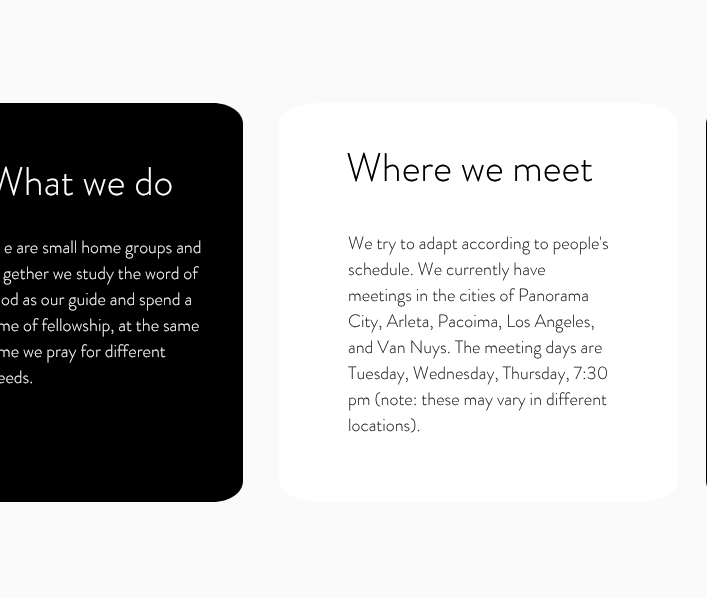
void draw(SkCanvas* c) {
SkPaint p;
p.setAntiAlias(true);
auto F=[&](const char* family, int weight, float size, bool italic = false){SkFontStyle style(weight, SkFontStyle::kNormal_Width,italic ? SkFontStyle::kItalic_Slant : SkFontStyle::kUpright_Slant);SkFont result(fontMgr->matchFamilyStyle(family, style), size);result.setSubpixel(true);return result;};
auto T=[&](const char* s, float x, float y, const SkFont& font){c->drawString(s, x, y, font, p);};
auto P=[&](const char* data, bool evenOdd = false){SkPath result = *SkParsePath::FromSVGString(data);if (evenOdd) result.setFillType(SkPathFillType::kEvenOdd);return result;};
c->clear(0xfffafafa);
p.setColor(0xff000000);
c->drawPath(P("M213 502h-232c-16 0-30-9-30-21v-357c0-12 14-21 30-21h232c16 0 30 9 30 21v357c0 12-14 21-30 21z"),p);
p.setColor(0xffffffff);
c->drawPath(P("M637 502h-317c-22 0-41-9-41-21v-357c0-12 19-21 41-21h317c22 0 41 9 41 21v357c0 12-19 21-41 21z"),p);
p.setColor(0xff000000);
c->drawPath(P("M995 502h-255c-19 0-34-9-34-21v-357c0-12 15-21 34-21h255c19 0 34 9 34 21v357c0 12-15 21-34 21z"),p);
auto f1 = F("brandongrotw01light",300,40);
p.setColor(0xffffffff);
T("What we do",-12,195,f1);
p.setColor(0xff000000);
T("Where we meet",346,181,f1);
auto f2 = F("brandongrotw01light",300,18);
p.setColor(0xffffffff);
T("e are small home groups and",4,253,f2);
T("gether we study the word of",3,279,f2);
T("od as our guide and spend a",1,305,f2);
T("me of fellowship, at the same",-3,331,f2);
T("me we pray for different",-3,357,f2);
T("eeds.",-3,383,f2);
p.setColor(0xff2b2b2b);
T("We try to adapt according to people's",348,249,f2);
T("schedule. We currently have",348,275,f2);
T("meetings in the cities of Panorama",348,301,f2);
T("City, Arleta, Pacoima, Los Angeles,",348,327,f2);
T("and Van Nuys. The meeting days are",348,353,f2);
T("Tuesday, Wednesday, Thursday, 7:30",348,379,f2);
T("pm (note: these may vary in different",348,405,f2);
T("locations).",348,431,f2);
}
